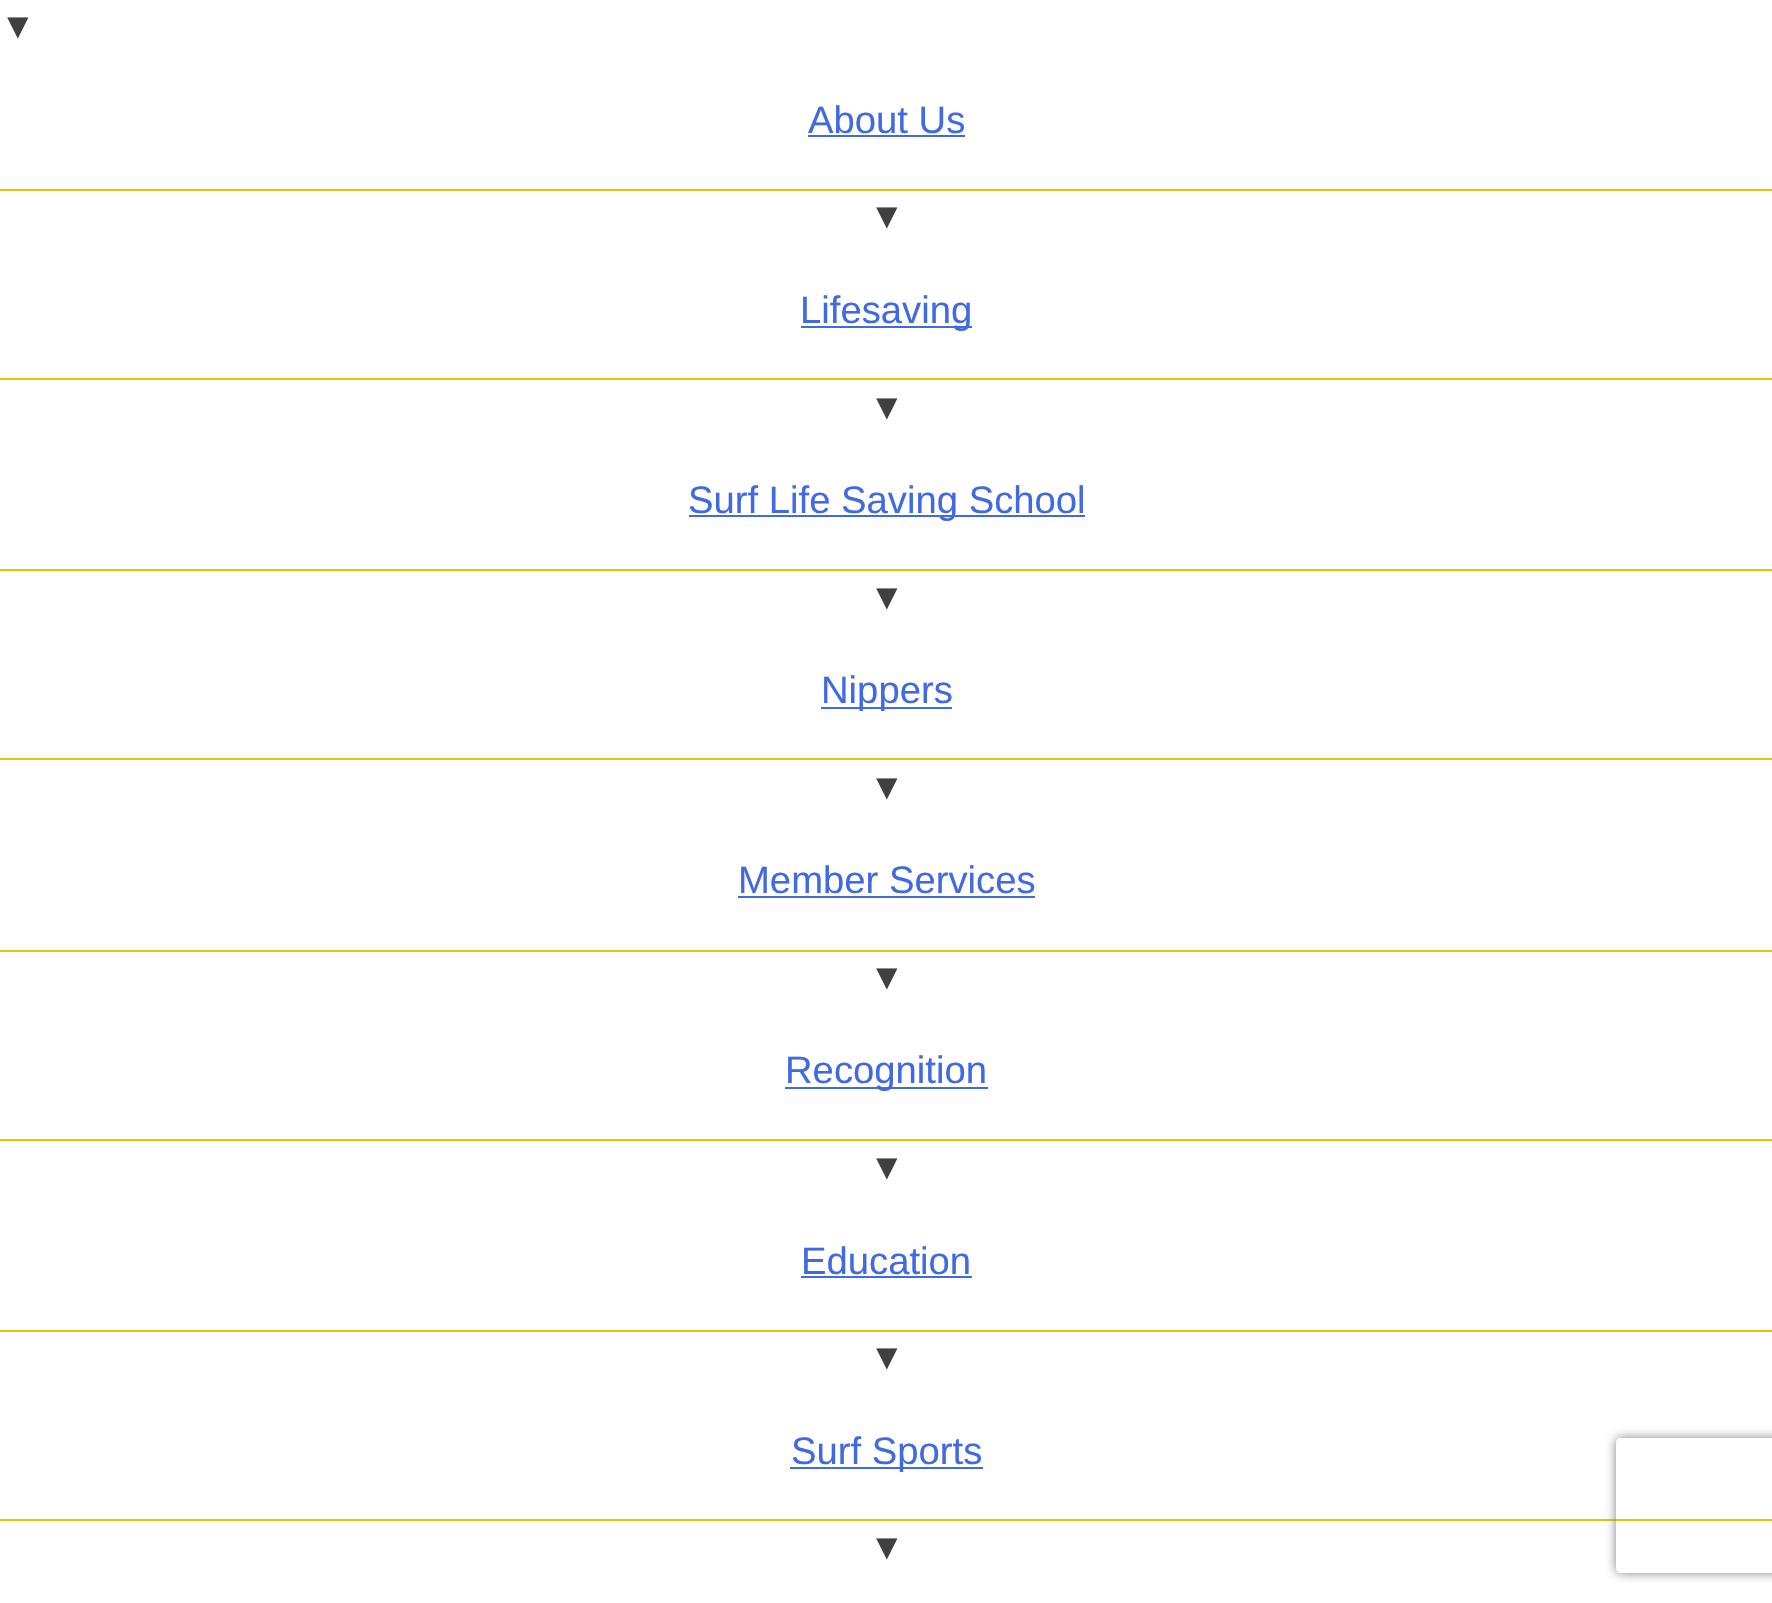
void draw(SkCanvas* c) {
SkPaint p;
p.setAntiAlias(true);
auto F=[&](const char* family, int weight, float size, bool italic = false){SkFontStyle style(weight, SkFontStyle::kNormal_Width,italic ? SkFontStyle::kItalic_Slant : SkFontStyle::kUpright_Slant);SkFont result(fontMgr->matchFamilyStyle(family, style), size);result.setSubpixel(true);return result;};
auto T=[&](const char* s, float x, float y, const SkFont& font){c->drawString(s, x, y, font, p);};
auto R=[&](float x, float y, float w, float h){c->drawRect(SkRect::MakeXYWH(x, y, w, h), p);};
auto P=[&](const char* data, bool evenOdd = false){SkPath result = *SkParsePath::FromSVGString(data);if (evenOdd) result.setFillType(SkPathFillType::kEvenOdd);return result;};
c->clear(0xffffffff);
auto f1 = F("Liberation Sans",400,36);
p.setColor(0xff404040);
T("▼",0,38,f1);
p.setColor(0xffe2c508);
R(0,189,1772,2);
auto f2 = F("Liberation Sans",400,38.25);
p.setColor(0xff4169e1);
T("About Us",808,133,f2);
R(808,135,157,2);
p.setColor(0xff404040);
T("▼",869,228,f1);
p.setColor(0xffe2c508);
R(0,378,1772,2);
p.setColor(0xff4169e1);
R(801,326,171,2);
T("Lifesaving",800,323,f2);
p.setColor(0xff404040);
T("▼",869,419,f1);
p.setColor(0xffe2c508);
R(0,569,1772,2);
p.setColor(0xff4169e1);
R(689,515,396,2);
T("Surf Life Saving School",688,513,f2);
p.setColor(0xff404040);
T("▼",869,609,f1);
p.setColor(0xffe2c508);
R(0,758,1772,2);
p.setColor(0xff4169e1);
R(821,707,131,2);
T("Nippers",821,703,f2);
p.setColor(0xff404040);
T("▼",869,799,f1);
p.setColor(0xffe2c508);
R(0,950,1772,2);
p.setColor(0xff4169e1);
T("Member Services",738,893,f2);
R(738,896,297,2);
p.setColor(0xff404040);
T("▼",869,989,f1);
p.setColor(0xffe2c508);
R(0,1139,1772,2);
p.setColor(0xff4169e1);
R(785,1087,203,2);
T("Recognition",785,1083,f2);
p.setColor(0xff404040);
T("▼",869,1179,f1);
p.setColor(0xffe2c508);
R(0,1330,1772,2);
p.setColor(0xff4169e1);
T("Education",801,1274,f2);
R(801,1276,171,2);
p.setColor(0xff404040);
T("▼",869,1369,f1);
p.setColor(0xffe2c508);
R(0,1519,1772,2);
p.setColor(0xff4169e1);
R(790,1467,193,2);
T("Surf Sports",791,1464,f2);
p.setColor(0xff404040);
T("▼",869,1559,f1);
c->save();
c->clipPath(P("M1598 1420h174v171h-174zm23 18h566c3 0 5 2 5 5v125c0 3-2 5-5 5h-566c-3 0-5-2-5-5v-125c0-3 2-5 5-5z",true),true);
p.setColor(0xff808080);
p.setMaskFilter(SkMaskFilter::MakeBlur(kNormal_SkBlurStyle, 5.5));
c->drawRoundRect(SkRect::MakeXYWH(1616,1438,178,135),5,5,p);
p.setMaskFilter(nullptr);
c->restore();
}
